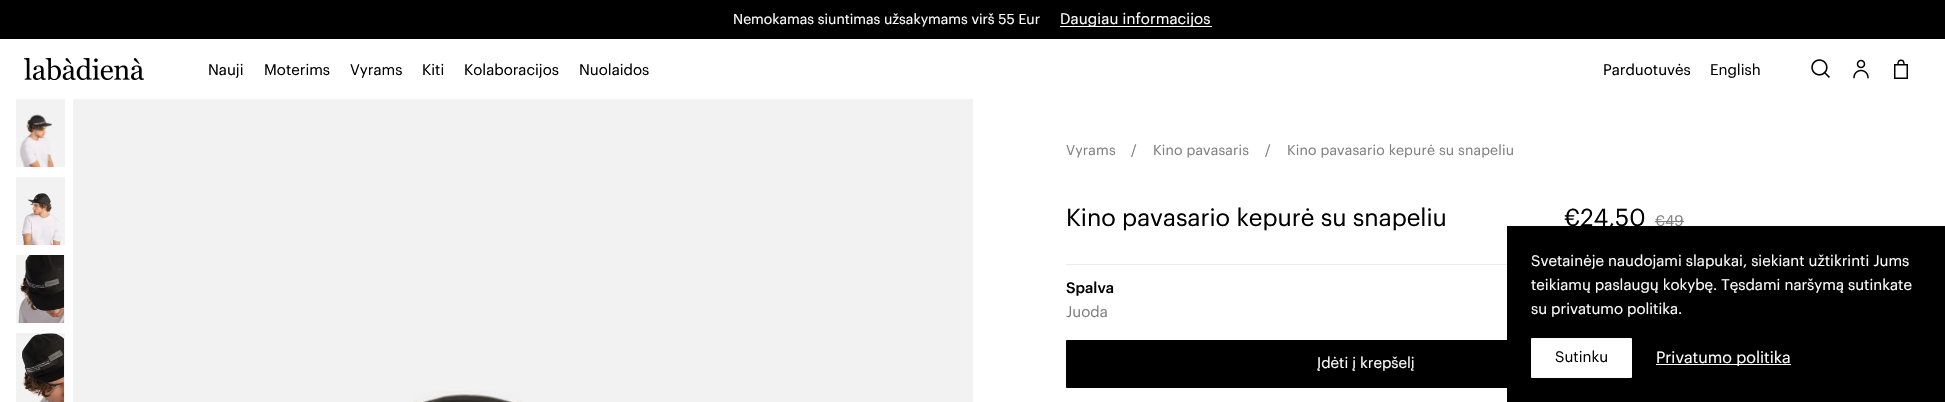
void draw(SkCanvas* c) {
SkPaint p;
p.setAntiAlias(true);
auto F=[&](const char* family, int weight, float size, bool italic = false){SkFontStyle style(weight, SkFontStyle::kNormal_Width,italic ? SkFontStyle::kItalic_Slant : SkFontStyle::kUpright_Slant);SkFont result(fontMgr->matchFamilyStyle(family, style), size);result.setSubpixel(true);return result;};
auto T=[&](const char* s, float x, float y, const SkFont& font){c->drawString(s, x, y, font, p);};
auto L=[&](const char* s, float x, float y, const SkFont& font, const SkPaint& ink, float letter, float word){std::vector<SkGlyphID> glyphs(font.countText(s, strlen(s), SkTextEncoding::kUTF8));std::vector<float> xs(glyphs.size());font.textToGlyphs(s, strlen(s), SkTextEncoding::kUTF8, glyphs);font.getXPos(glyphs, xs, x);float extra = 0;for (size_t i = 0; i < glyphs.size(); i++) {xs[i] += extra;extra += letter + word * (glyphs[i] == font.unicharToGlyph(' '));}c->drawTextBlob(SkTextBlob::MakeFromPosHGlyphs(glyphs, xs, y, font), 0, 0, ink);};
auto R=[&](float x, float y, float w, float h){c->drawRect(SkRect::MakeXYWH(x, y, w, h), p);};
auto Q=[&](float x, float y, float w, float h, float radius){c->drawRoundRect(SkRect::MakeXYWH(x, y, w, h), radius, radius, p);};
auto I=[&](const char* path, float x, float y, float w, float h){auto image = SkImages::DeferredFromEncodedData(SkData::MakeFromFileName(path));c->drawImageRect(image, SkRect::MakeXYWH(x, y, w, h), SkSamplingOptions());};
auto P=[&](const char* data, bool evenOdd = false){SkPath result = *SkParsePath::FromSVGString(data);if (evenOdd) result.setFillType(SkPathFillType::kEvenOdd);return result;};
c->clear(0xffffffff);
p.setColor(0xff000000);
R(0,0,1945,39);
auto f1 = F("Graphik",400,14);
p.setColor(0xffffffff);
T("Nemokamas siuntimas užsakymams virš 55 Eur",733,24,f1);
R(1060,26,152,1);
auto f2 = F("Graphik",400,15);
L("Daugiau informacijos",1060,24,f2,p,.1,0);
I("1.png",24,58,120,22);
p.setColor(0xff000000);
T("Nauji",208,75,f2);
T("Moterims",264,75,f2);
T("Vyrams",350,75,f2);
T("Kiti",422,75,f2);
T("Kolaboracijos",464,75,f2);
T("Nuolaidos",579,75,f2);
T("Parduotuvės",1603,75,f2);
T("English",1710,75,f2);
I("2.png",1811,59,19,19);
I("3.png",1853,59,16,20);
p.setStroke(true);
p.setStrokeWidth(1.4);
c->drawPath(P("M1904 64c0-5-6-5-6 0"),p);
p.setStrokeWidth(1.5);
c->drawRect(SkRect::MakeXYWH(1894.75,64.75,12.5,13.5),p);
p.setStroke(false);
p.setColor(0xfff2f2f2);
R(16,99,49,68);
I("4.png",19,114,35,53);
R(16,177,49,68);
I("5.png",21,192,41,53);
R(16,255,49,68);
I("6.png",18,255,46,68);
R(16,333,49,69);
I("7.png",21,333,43,69);
R(73,99,900,303);
I("8.png",413,391,109,11);
p.setColor(0xff808080);
L("Vyrams",1066,155,f1,p,.15,0);
L("/",1131,155,f1,p,.15,0);
L("Kino pavasaris",1153,155,f1,p,.15,0);
L("/",1265,155,f1,p,.15,0);
L("Kino pavasario kepurė su snapeliu",1287,155,f1,p,.15,0);
auto f3 = F("Graphik",400,24);
p.setColor(0xff000000);
T("Kino pavasario kepurė su snapeliu",1066,226,f3);
T("€24,50",1564,226,f3);
p.setColor(0xff808080);
T("€49",1655,226,f2);
R(1655,221,29,1);
p.setColor(0xffebebeb);
R(1066,264,441,1);
auto f4 = F("Graphik",500,15);
p.setColor(0xff000000);
T("Spalva",1066,293,f4);
p.setColor(0xff808080);
T("Juoda",1066,317,f2);
p.setColor(0xff000000);
Q(1066,340,618,48,1);
p.setColor(0xffffffff);
T("Įdėti į krepšelį",1317,368,f2);
p.setColor(0xff000000);
R(1507,226,438,176);
p.setColor(0xffffffff);
T("Svetainėje naudojami slapukai, siekiant užtikrinti Jums",1531,266,f2);
T("teikiamų paslaugų kokybę. Tęsdami naršymą sutinkate",1531,290,f2);
T("su privatumo politika.",1531,314,f2);
Q(1531,338,101,40,1);
p.setColor(0xff000000);
T("Sutinku",1555,362,f2);
p.setColor(0xffffffff);
R(1656,364,135,1);
auto f5 = F("Graphik",400,16);
T("Privatumo politika",1656,363,f5);
}
